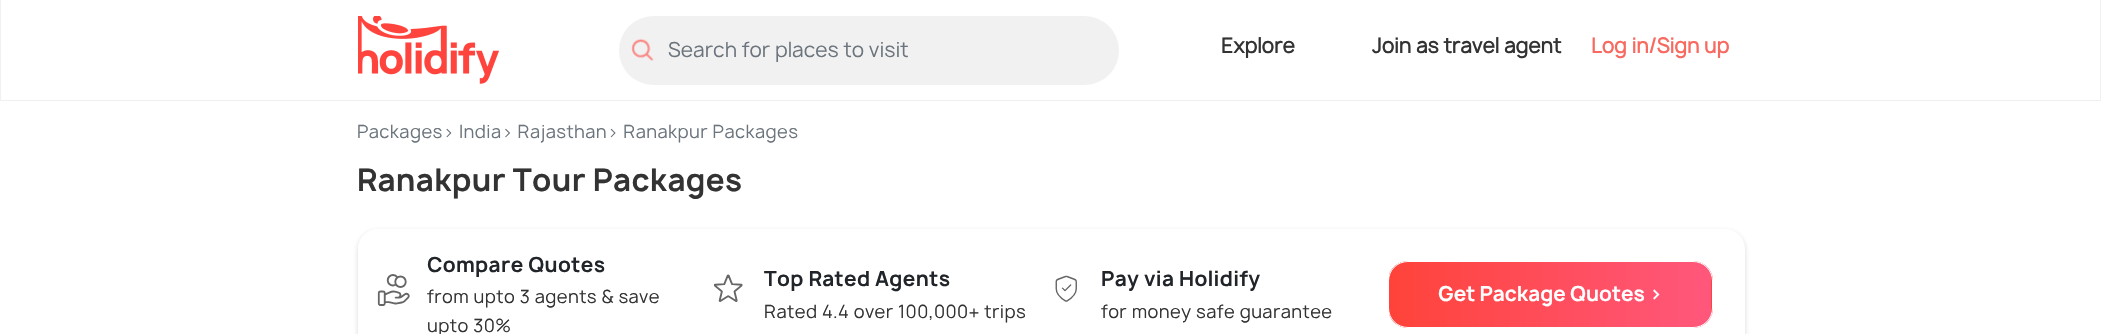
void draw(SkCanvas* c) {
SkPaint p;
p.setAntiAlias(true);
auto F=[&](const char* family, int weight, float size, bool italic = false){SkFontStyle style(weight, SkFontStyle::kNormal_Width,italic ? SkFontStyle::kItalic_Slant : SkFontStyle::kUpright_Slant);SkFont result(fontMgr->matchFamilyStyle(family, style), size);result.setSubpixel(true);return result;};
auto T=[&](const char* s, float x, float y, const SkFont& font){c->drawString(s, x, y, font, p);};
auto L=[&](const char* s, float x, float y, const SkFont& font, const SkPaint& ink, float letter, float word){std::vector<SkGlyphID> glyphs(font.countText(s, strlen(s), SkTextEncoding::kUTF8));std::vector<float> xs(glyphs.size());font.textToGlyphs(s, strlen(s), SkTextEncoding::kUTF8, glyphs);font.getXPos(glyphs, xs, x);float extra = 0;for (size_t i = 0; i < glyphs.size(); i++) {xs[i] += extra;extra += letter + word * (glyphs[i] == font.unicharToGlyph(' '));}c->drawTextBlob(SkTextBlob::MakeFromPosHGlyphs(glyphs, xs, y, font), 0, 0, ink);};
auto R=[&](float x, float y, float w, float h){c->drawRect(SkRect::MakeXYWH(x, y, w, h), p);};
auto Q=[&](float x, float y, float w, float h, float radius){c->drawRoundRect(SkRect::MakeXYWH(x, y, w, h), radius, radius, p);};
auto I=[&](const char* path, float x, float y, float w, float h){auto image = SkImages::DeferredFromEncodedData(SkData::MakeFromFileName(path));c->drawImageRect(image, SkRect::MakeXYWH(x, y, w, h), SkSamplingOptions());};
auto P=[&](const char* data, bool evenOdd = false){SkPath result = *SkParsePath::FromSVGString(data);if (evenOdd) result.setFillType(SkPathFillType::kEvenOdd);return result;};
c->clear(0xffffffff);
p.setColor(0xfff0f0f0);
c->drawPath(P("M2101 0v101l-1-1v-100z"),p);
p.setColor(0x4acacaca);
c->drawPath(P("M2101 101h-2101l1-1h2099z"),p);
c->drawPath(P("M0 101v-101h1v100z"),p);
I("1.png",358,16,141,68);
p.setColor(0xfff1f1f1);
Q(619,16,500,69,34.5);
I("2.png",631,38,23,23);
auto f1 = F("Manrope",400,20);
p.setColor(0xff6c757d);
T("Search for places to visit",668,57,f1);
auto f2 = F("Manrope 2",700,20);
p.setColor(0xff333333);
T("Explore",1221,53,f2);
T("Join as travel agent",1372,53,f2);
p.setColor(0xfff86960);
T("Log in/Sign up",1591,53,f2);
auto f3 = F("Manrope",400,17.5);
p.setColor(0xff6c757d);
L("Packages› India› Rajasthan› Ranakpur Packages",357,138,f3,p,.4,0);
auto f4 = F("Manrope",700,30);
p.setColor(0xff333333);
L("Ranakpur Tour Packages",357,191,f4,p,.4,0);
c->save();
c->clipPath(P("M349 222h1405v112h-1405zm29 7h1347c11 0 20 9 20 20v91c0 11-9 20-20 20h-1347c-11 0-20-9-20-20v-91c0-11 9-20 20-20z",true),true);
p.setColor(0x80b2b2b2);
p.setMaskFilter(SkMaskFilter::MakeBlur(kNormal_SkBlurStyle, 2.5));
c->drawRoundRect(SkRect::MakeXYWH(358,231,1387,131),20,20,p);
p.setMaskFilter(nullptr);
c->restore();
I("3.png",377,274,33,32);
auto f5 = F("Manrope",700,20);
p.setColor(0xff212529);
L("Compare Quotes",427,272,f5,p,.4,0);
p.setColor(0xff333333);
L("from upto 3 agents & save",427,303,f3,p,.4,0);
L("upto 30%",427,332,f3,p,.4,0);
I("4.png",714,274,29,28);
p.setColor(0xff212529);
L("Top Rated Agents",764,286,f5,p,.4,0);
p.setColor(0xff333333);
L("Rated 4.4 over 100,000+ trips",764,318,f3,p,.4,0);
I("5.png",1055,275,22,27);
p.setColor(0xff212529);
L("Pay via Holidify",1101,286,f5,p,.4,0);
p.setColor(0xff333333);
L("for money safe guarantee",1101,318,f3,p,.4,0);
c->save();
c->clipPath(P("M1408 261h285c11 0 20 9 20 20v27c0 11-9 20-20 20h-285c-11 0-20-9-20-20v-27c0-11 9-20 20-20z"),true);
{
const SkColor colors[] = {0xffff433a,0xffff577c};
const float stops[] = {0,1};
const SkPoint ends[] = {{1389,294}, {1711,294}};
p.setShader(SkGradientShader::MakeLinear(ends, colors, stops, 2, SkTileMode::kClamp));
p.setAlpha(255);
}
R(1389,261,322,67);
{
const SkColor colors[] = {0xffff433a,0xffff577c};
const float stops[] = {0,1};
const SkPoint ends[] = {{1711,294}, {2034,294}};
p.setShader(SkGradientShader::MakeLinear(ends, colors, stops, 2, SkTileMode::kClamp));
p.setAlpha(255);
}
R(1711,272,2,45);
c->restore();
p.setStroke(true);
p.setStrokeWidth(1);
p.setShader(nullptr);
p.setColor(0xffffffff);
c->drawRoundRect(SkRect::MakeXYWH(1388.5,261.5,324,66),19.5,19.5,p);
p.setStroke(false);
T("Get Package Quotes >",1438,301,f5);
}
